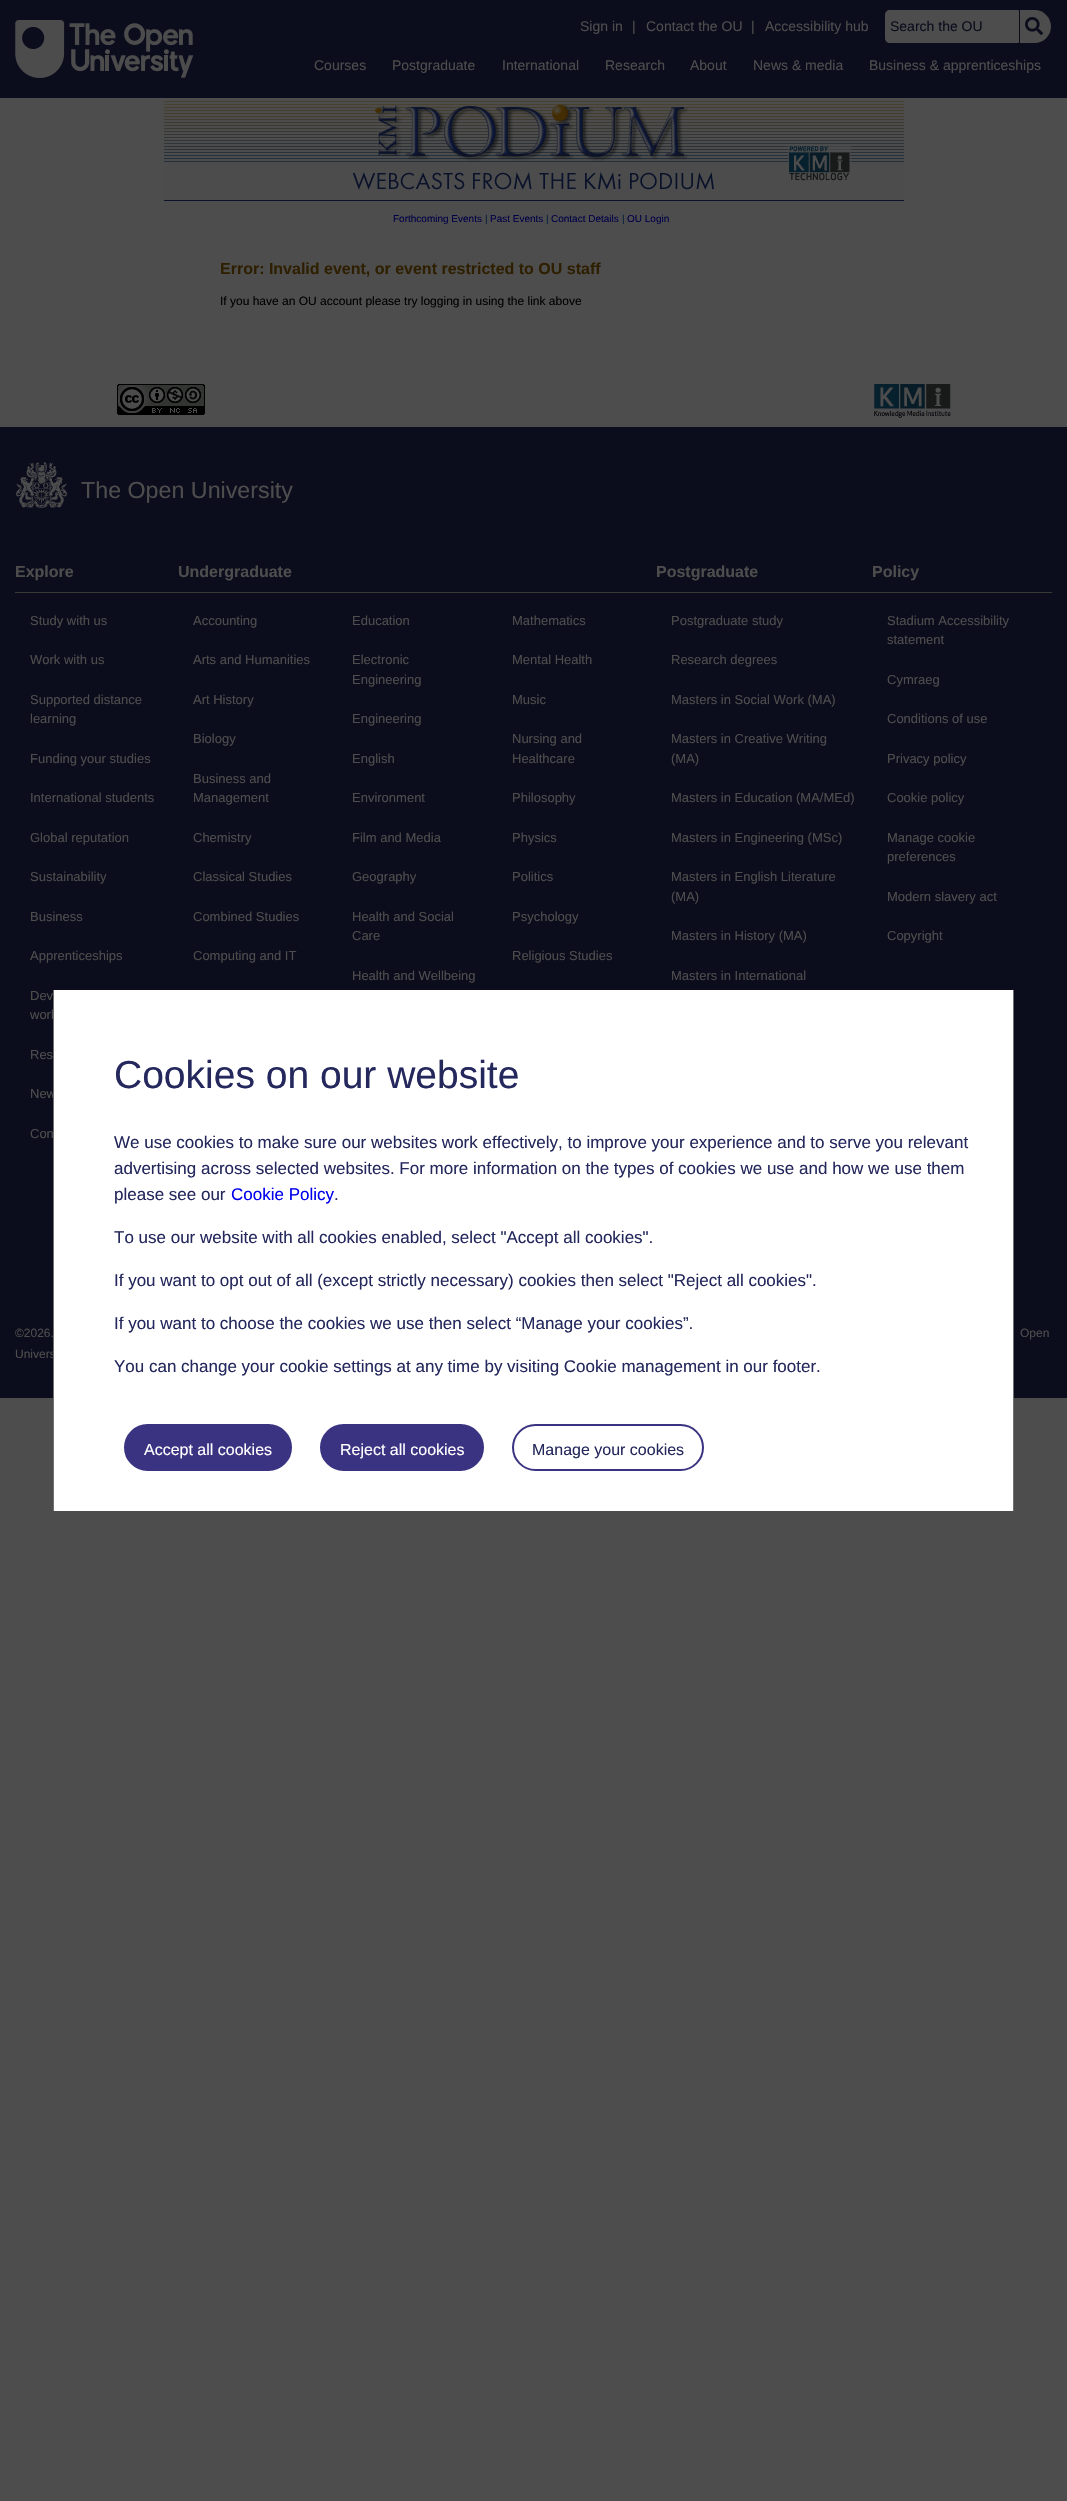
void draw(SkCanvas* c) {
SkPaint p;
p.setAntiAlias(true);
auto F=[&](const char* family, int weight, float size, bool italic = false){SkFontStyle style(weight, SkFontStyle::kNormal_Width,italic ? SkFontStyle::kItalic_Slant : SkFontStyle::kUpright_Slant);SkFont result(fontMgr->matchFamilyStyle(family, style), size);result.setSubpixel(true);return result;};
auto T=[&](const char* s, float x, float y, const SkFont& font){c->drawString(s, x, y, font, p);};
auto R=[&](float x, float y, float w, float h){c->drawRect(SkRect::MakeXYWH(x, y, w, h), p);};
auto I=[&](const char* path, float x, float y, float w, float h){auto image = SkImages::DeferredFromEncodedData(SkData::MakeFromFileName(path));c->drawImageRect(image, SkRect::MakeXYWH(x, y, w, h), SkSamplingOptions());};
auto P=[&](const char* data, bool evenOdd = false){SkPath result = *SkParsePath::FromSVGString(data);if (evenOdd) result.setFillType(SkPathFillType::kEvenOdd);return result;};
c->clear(0xff4d4d4d);
p.setColor(0xff0b0c1c);
R(0,0,1067,98);
I("1.png",15,20,179,58);
auto f1 = F("Liberation Sans",400,14);
p.setColor(0xff4d4d4d);
T("Sign in",580,31,f1);
T("|",632,31,f1);
T("Contact the OU",646,31,f1);
T("|",751,31,f1);
T("Accessibility hub",765,31,f1);
c->drawPath(P("M890 10h128c.5 0 1 .5 1 1v31c0 .5-.5 1-1 1h-128c-3 0-5-2-5-5v-23c0-3 2-5 5-5z"),p);
p.setColor(0xff0b0c1c);
T("Search the OU",890,31,f1);
p.setColor(0xff4d4d4d);
c->drawPath(P("M1019.5 10h15c9 0 16.5 7.5 16.5 16.5c0 9-7.5 16.5-16.5 16.5h-15c-.5 0-.5 0-.5-.5v-32c0-.5 0-.5 .5-.5z"),p);
p.setColor(0xff0b0c1c);
R(1019,10,1,33);
I("2.png",1025,17,18,18);
p.setColor(0xff4d4d4d);
T("Courses",314,70,f1);
T("Postgraduate",392,70,f1);
T("International",502,70,f1);
T("Research",605,70,f1);
T("About",690,70,f1);
T("News & media",753,70,f1);
T("Business & apprenticeships",869,70,f1);
I("3.png",164,101,740,100);
auto f2 = F("Liberation Sans",400,10);
p.setColor(0xff000047);
T("Forthcoming Events",393,222,f2);
p.setColor(0xff001f3d);
T("|",485,222,f2);
p.setColor(0xff000047);
T("Past Events",490,222,f2);
p.setColor(0xff001f3d);
T("|",546,222,f2);
p.setColor(0xff000047);
T("Contact Details",551,222,f2);
p.setColor(0xff001f3d);
T("|",622,222,f2);
p.setColor(0xff000047);
T("OU Login",627,222,f2);
auto f3 = F("Liberation Sans",700,16);
p.setColor(0xff2e1f00);
T("Error: Invalid event, or event restricted to OU staff",220,274,f3);
auto f4 = F("Liberation Sans",400,12);
p.setColor(0xff000000);
T("If you have an OU account please try logging in using the link above",220,305,f4);
I("4.png",117,384,88,31);
I("5.png",874,384,77,34);
p.setColor(0xff0b0c1c);
R(0,427,1067,971);
I("6.png",16,462,51,46);
auto f5 = F("Liberation Sans",400,23.25);
p.setColor(0xff4d4d4d);
T("The Open University",81,498,f5);
p.setColor(0xff393939);
R(15,592,1037,1);
p.setColor(0xff4d4d4d);
T("Explore",15,577,f3);
auto f6 = F("Liberation Sans",400,13);
T("Study with us",30,625,f6);
T("Work with us",30,664,f6);
T("Supported distance",30,704,f6);
T("learning",30,723,f6);
T("Funding your studies",30,763,f6);
T("International students",30,802,f6);
T("Global reputation",30,842,f6);
T("Sustainability",30,881,f6);
T("Business",30,921,f6);
T("Apprenticeships",30,960,f6);
T("Dev",30,1000,f6);
T("work",30,1019,f6);
T("Res",30,1059,f6);
T("New",30,1098,f6);
T("Con",30,1138,f6);
T("Undergraduate",178,577,f3);
T("Accounting",193,625,f6);
T("Education",352,625,f6);
T("Mathematics",512,625,f6);
T("Arts and Humanities",193,664,f6);
T("Electronic",352,664,f6);
T("Engineering",352,684,f6);
T("Mental Health",512,664,f6);
T("Art History",193,704,f6);
T("Music",512,704,f6);
T("Engineering",352,723,f6);
T("Biology",193,743,f6);
T("English",352,763,f6);
T("Nursing and",512,743,f6);
T("Healthcare",512,763,f6);
T("Business and",193,783,f6);
T("Management",193,802,f6);
T("Environment",352,802,f6);
T("Philosophy",512,802,f6);
T("Chemistry",193,842,f6);
T("Film and Media",352,842,f6);
T("Physics",512,842,f6);
T("Classical Studies",193,881,f6);
T("Geography",352,881,f6);
T("Politics",512,881,f6);
T("Combined Studies",193,921,f6);
T("Health and Social",352,921,f6);
T("Care",352,940,f6);
T("Psychology",512,921,f6);
T("Computing and IT",193,960,f6);
T("Religious Studies",512,960,f6);
T("Health and Wellbeing",352,980,f6);
T("Postgraduate",656,577,f3);
T("Postgraduate study",671,625,f6);
T("Research degrees",671,664,f6);
T("Masters in Social Work (MA)",671,704,f6);
T("Masters in Creative Writing",671,743,f6);
T("(MA)",671,763,f6);
T("Masters in Education (MA/MEd)",671,802,f6);
T("Masters in Engineering (MSc)",671,842,f6);
T("Masters in English Literature",671,881,f6);
T("(MA)",671,901,f6);
T("Masters in History (MA)",671,940,f6);
T("Masters in International",671,980,f6);
T("Policy",872,577,f3);
T("Stadium Accessibility",887,625,f6);
T("statement",887,644,f6);
T("Cymraeg",887,684,f6);
T("Conditions of use",887,723,f6);
T("Privacy policy",887,763,f6);
T("Cookie policy",887,802,f6);
T("Manage cookie",887,842,f6);
T("preferences",887,861,f6);
T("Modern slavery act",887,901,f6);
T("Copyright",887,940,f6);
T("©2026.",15,1337,f4);
T("Open",1020,1337,f4);
T("Univers",15,1358,f4);
p.setColor(0xffffffff);
R(54,990,959,521);
p.setColor(0xff707070);
R(1013,990,1,521);
R(53,990,1,521);
auto f7 = F("Liberation Sans",400,39);
p.setColor(0xff24285c);
T("Cookies on our website",114,1088,f7);
auto f8 = F("Liberation Sans",400,17);
T("We use cookies to make sure our websites work effectively, to improve your experience and to serve you relevant",114,1148,f8);
T("advertising across selected websites. For more information on the types of cookies we use and how we use them",114,1174,f8);
T("please see our",114,1200,f8);
p.setColor(0xff0000ee);
T("Cookie Policy",231,1200,f8);
p.setColor(0xff24285c);
T(".",334,1200,f8);
T("To use our website with all cookies enabled, select \"Accept all cookies\".",114,1243,f8);
T("If you want to opt out of all (except strictly necessary) cookies then select \"Reject all cookies\".",114,1286,f8);
T("If you want to choose the cookies we use then select “Manage your cookies”.",114,1329,f8);
T("You can change your cookie settings at any time by visiting Cookie management in our footer.",114,1372,f8);
p.setColor(0xff3a3381);
c->drawRoundRect(SkRect::MakeXYWH(125,1425,166,45),22.5,22.5,p);
p.setStroke(true);
p.setStrokeWidth(2);
c->drawRoundRect(SkRect::MakeXYWH(125,1425,166,45),22.5,22.5,p);
auto f9 = F("Liberation Sans",400,16);
p.setStroke(false);
p.setColor(0xffffffff);
T("Accept all cookies",144,1455,f9);
p.setColor(0xff3a3381);
c->drawRoundRect(SkRect::MakeXYWH(321,1425,162,45),22.5,22.5,p);
p.setStroke(true);
c->drawRoundRect(SkRect::MakeXYWH(321,1425,162,45),22.5,22.5,p);
p.setStroke(false);
p.setColor(0xffffffff);
T("Reject all cookies",340,1455,f9);
p.setStroke(true);
p.setColor(0xff3a3381);
c->drawRoundRect(SkRect::MakeXYWH(513,1425,190,45),22.5,22.5,p);
p.setStroke(false);
p.setColor(0xff24285c);
T("Manage your cookies",532,1455,f9);
}
